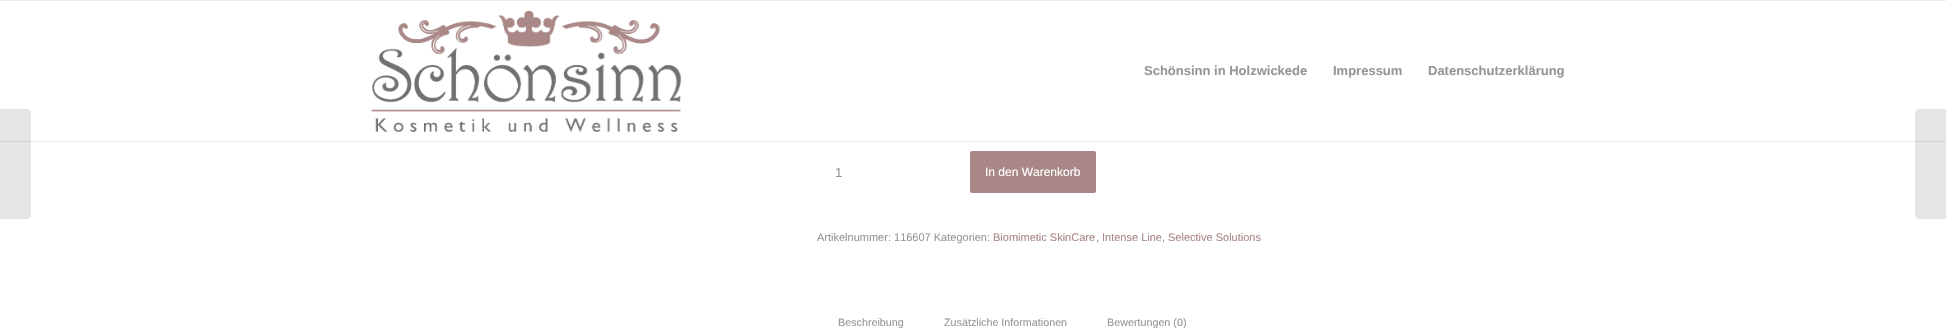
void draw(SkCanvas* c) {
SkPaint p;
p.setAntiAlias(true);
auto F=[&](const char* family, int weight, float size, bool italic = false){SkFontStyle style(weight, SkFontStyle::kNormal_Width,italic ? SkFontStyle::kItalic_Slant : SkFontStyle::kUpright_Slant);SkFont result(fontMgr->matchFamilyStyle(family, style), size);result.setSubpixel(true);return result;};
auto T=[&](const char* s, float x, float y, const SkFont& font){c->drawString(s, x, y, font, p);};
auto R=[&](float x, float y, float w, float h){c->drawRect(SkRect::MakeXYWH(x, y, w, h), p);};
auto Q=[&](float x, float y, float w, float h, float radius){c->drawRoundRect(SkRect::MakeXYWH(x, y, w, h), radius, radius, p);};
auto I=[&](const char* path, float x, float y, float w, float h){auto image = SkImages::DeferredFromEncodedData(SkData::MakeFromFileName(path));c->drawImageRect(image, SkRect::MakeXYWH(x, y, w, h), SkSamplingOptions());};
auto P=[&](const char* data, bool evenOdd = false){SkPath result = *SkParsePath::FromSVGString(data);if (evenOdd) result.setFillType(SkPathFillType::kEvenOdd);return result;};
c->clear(0xffffffff);
p.setColor(0xffebebeb);
R(0,0,1946,1);
R(0,141,1946,1);
I("1.png",371,10,310,122);
auto f1 = F("Liberation Sans",700,13);
p.setColor(0xff969696);
T("Schönsinn in Holzwickede",1144,75,f1);
T("Impressum",1333,75,f1);
T("Datenschutzerklärung",1428,75,f1);
p.setColor(0x1a000000);
c->drawPath(P("M0 109h27c2 0 4 2 4 4v102c0 2-2 4-4 4h-27z"),p);
auto f2 = F("Liberation Sans",400,13);
p.setColor(0xff969696);
T("1",835,177,f2);
p.setColor(0xffa98786);
Q(970,151,126,42,2);
auto f3 = F("Liberation Sans",400,12);
p.setColor(0xffffffff);
T("In den Warenkorb",985,176,f3);
auto f4 = F("Liberation Sans",400,11);
p.setColor(0xff969696);
T("Artikelnummer: 116607 Kategorien:",817,241,f4);
p.setColor(0xffa98786);
T("Biomimetic SkinCare",993,241,f4);
p.setColor(0xff969696);
T(",",1096,241,f4);
p.setColor(0xffa98786);
T("Intense Line",1102,241,f4);
p.setColor(0xff969696);
T(",",1162,241,f4);
p.setColor(0xffa98786);
T("Selective Solutions",1168,241,f4);
auto f5 = F("Liberation Sans",400,10.75);
p.setColor(0xff969696);
T("Beschreibung",838,326,f5);
T("Zusätzliche Informationen",944,326,f5);
T("Bewertungen (0)",1107,326,f5);
p.setColor(0x1a000000);
c->drawPath(P("M1919 109h27v110h-27c-2 0-4-2-4-4v-102c0-2 2-4 4-4z"),p);
}
